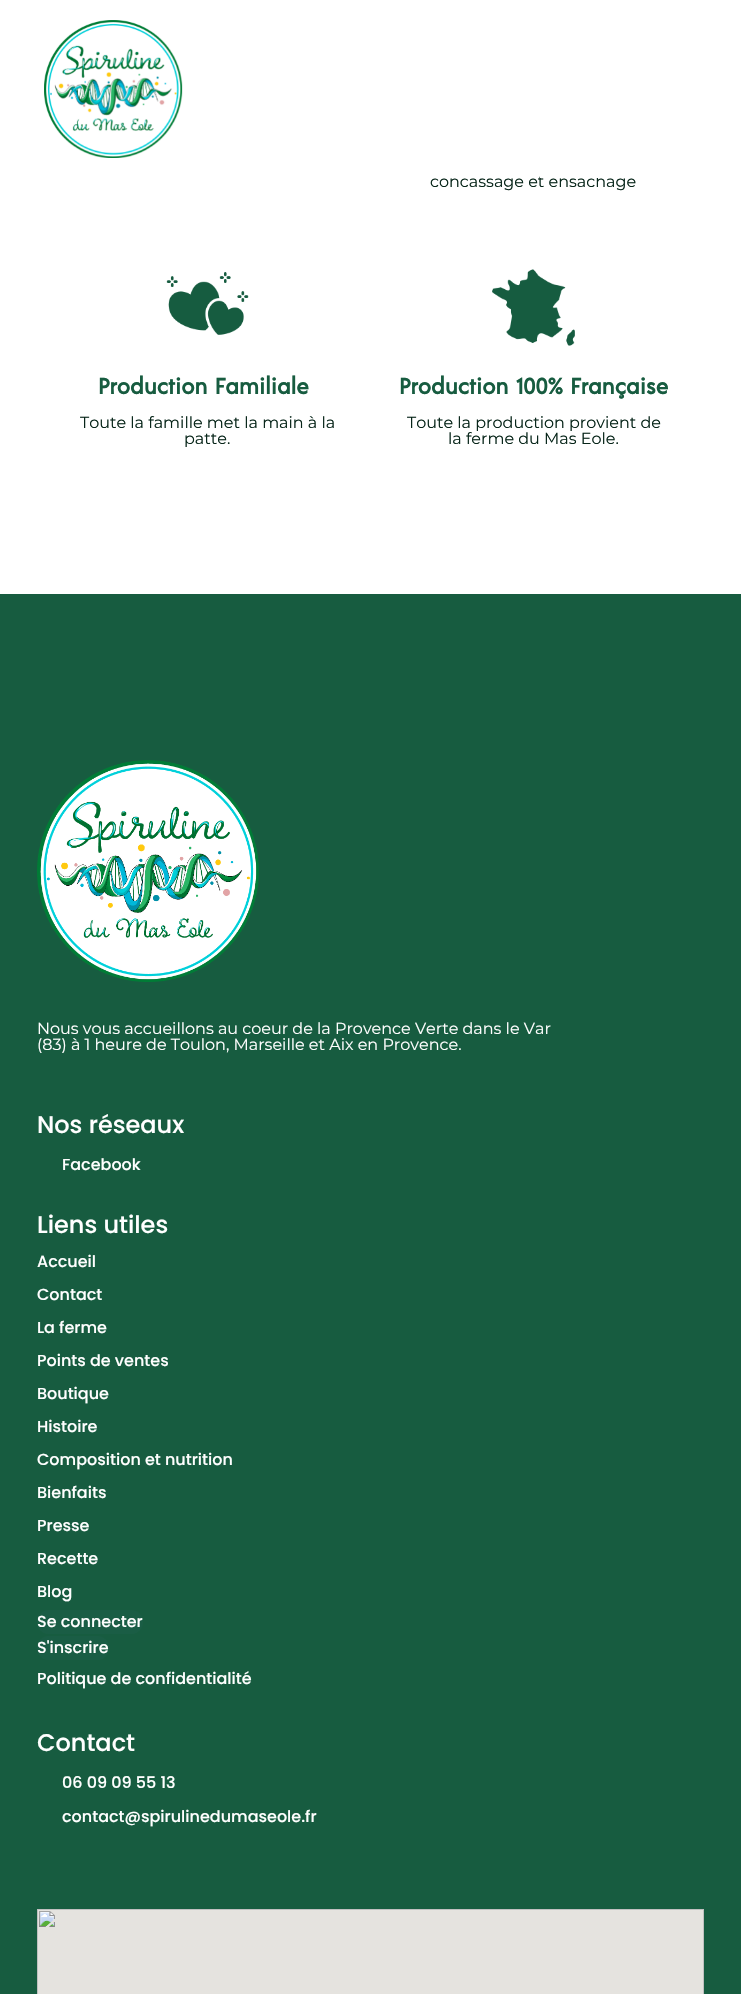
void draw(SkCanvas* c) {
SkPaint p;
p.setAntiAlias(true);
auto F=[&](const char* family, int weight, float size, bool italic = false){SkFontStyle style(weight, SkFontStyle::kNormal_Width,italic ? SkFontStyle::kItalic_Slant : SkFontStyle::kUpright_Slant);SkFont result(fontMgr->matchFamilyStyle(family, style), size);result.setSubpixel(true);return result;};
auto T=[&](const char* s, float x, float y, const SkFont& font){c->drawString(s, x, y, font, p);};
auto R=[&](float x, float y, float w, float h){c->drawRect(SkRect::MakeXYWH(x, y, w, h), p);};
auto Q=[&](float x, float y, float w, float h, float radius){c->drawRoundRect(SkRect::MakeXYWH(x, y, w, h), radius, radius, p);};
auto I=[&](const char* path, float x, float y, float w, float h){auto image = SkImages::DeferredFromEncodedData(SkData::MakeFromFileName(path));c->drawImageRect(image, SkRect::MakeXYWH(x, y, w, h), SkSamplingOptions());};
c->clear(0xffffffff);
auto f1 = F("Montserrat",400,16);
p.setColor(0xff072519);
T("concassage et ensachage",430,187,f1);
p.setColor(0xffffffff);
R(540,175,59,3);
I("1.png",44,20,139,138);
I("2.png",166,272,83,63);
auto f2 = F("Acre",700,22.4);
p.setColor(0xff175c40);
T("Production Familiale",98,394,f2);
p.setColor(0xff072519);
T("Toute la famille met la main à la",80,428,f1);
T("patte.",184,444,f1);
I("3.png",492,269,83,77);
p.setColor(0xff175c40);
T("Production 100% Française",399,394,f2);
p.setColor(0xff072519);
T("Toute la production provient de",407,428,f1);
T("la ferme du Mas Eole.",448,444,f1);
p.setColor(0xff175c40);
R(0,594,741,1400);
I("4.png",37,760,222,222);
p.setColor(0xffffffff);
T("Nous vous accueillons au coeur de la Provence Verte dans le Var",37,1034,f1);
T("(83) à 1 heure de Toulon, Marseille et Aix en Provence.",37,1050,f1);
auto f3 = F("Poppins",500,24);
T("Nos réseaux",37,1133,f3);
auto f4 = F("Poppins",500,16);
T("Facebook",62,1170,f4);
T("Liens utiles",37,1233,f3);
T("Accueil",37,1267,f4);
T("Contact",37,1300,f4);
T("La ferme",37,1333,f4);
T("Points de ventes",37,1366,f4);
T("Boutique",37,1399,f4);
T("Histoire",37,1432,f4);
T("Composition et nutrition",37,1465,f4);
T("Bienfaits",37,1498,f4);
T("Presse",37,1531,f4);
T("Recette",37,1564,f4);
T("Blog",37,1597,f4);
p.setColor(0xff1a5d45);
Q(37,1610,106,24,12);
p.setColor(0xffffffff);
T("Se connecter",37,1627,f4);
p.setColor(0xff1a5d45);
Q(37,1636,72,24,12);
p.setColor(0xffffffff);
T("S'inscrire",37,1653,f4);
T("Politique de confidentialité",37,1684,f4);
T("Contact",37,1751,f3);
T("06 09 09 55 13",62,1788,f4);
T("contact@spirulinedumaseole.fr",62,1822,f4);
I("5.png",37,1909,667,85);
}
